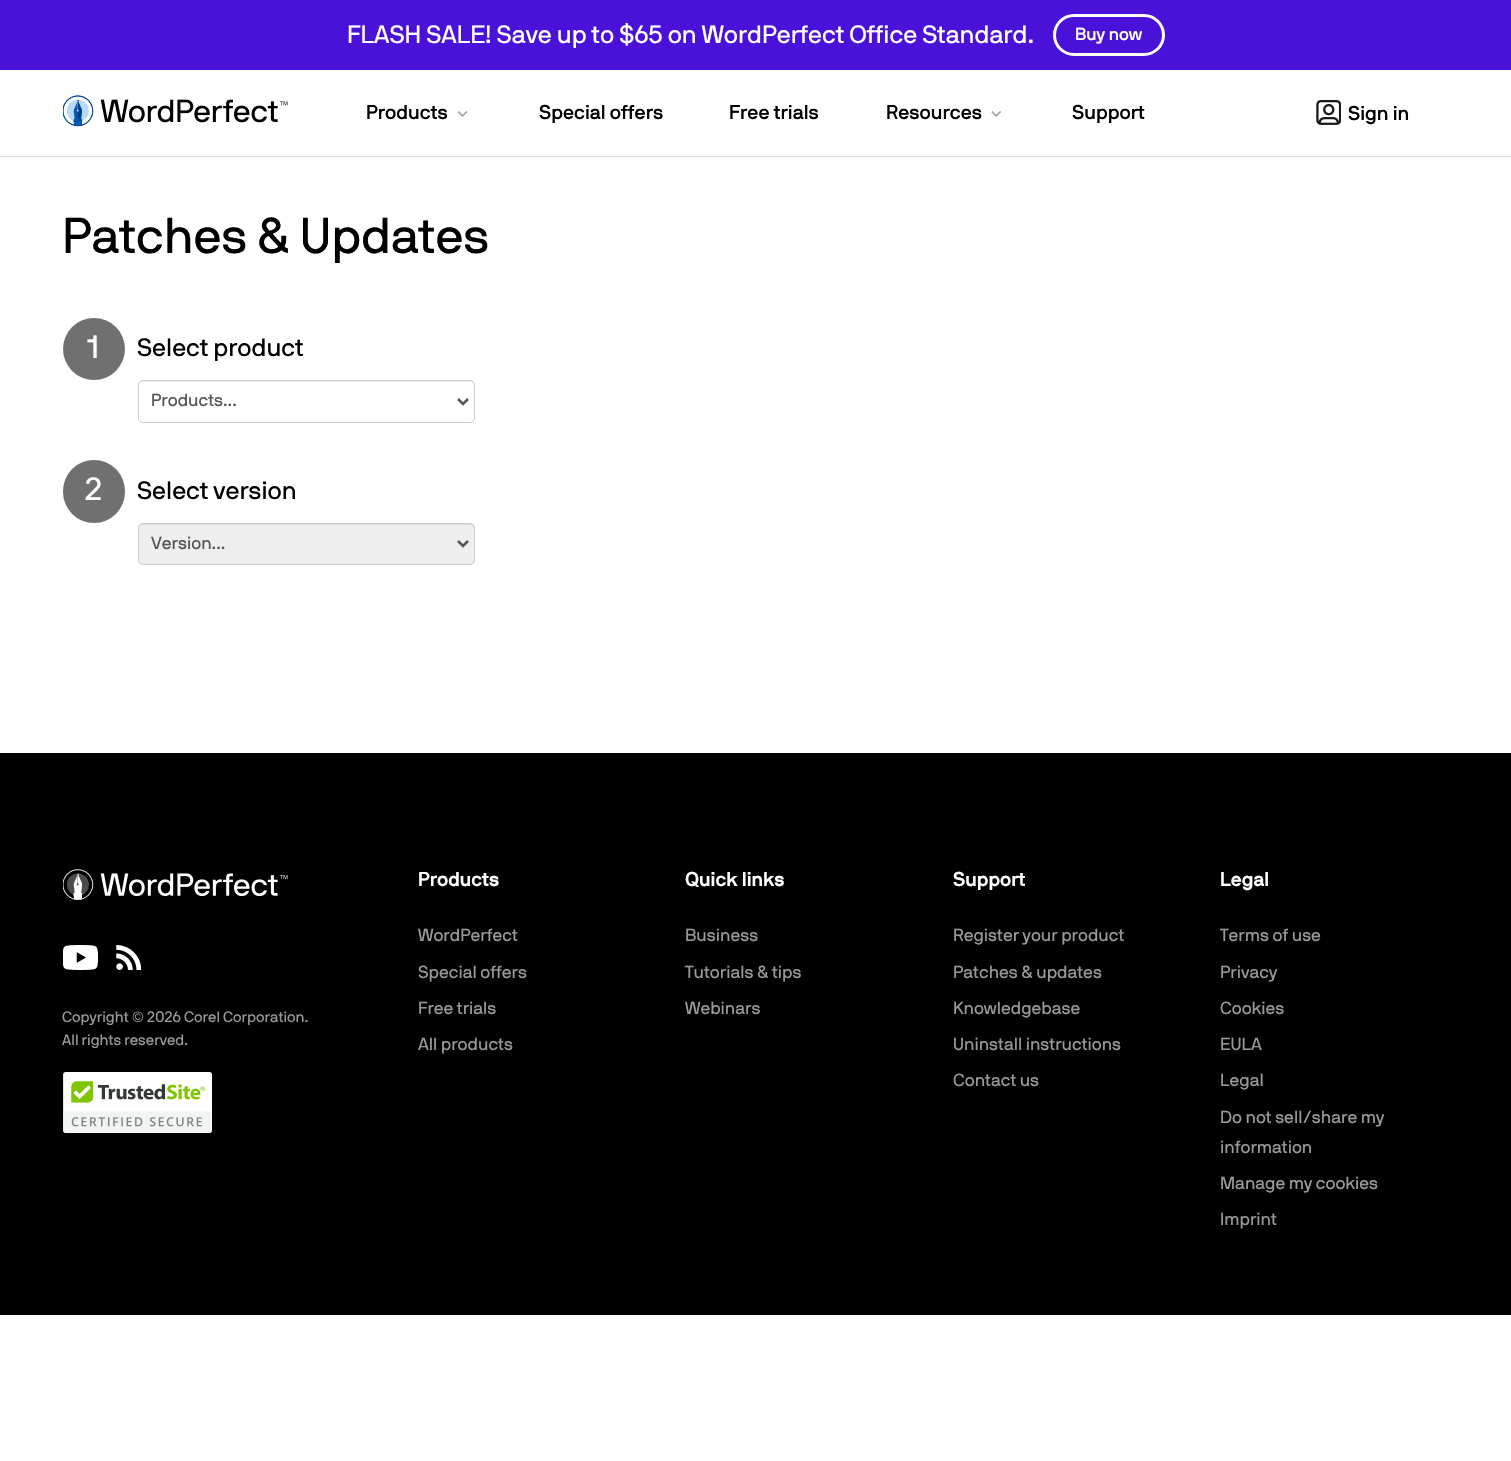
void draw(SkCanvas* c) {
SkPaint p;
p.setAntiAlias(true);
auto F=[&](const char* family, int weight, float size, bool italic = false){SkFontStyle style(weight, SkFontStyle::kNormal_Width,italic ? SkFontStyle::kItalic_Slant : SkFontStyle::kUpright_Slant);SkFont result(fontMgr->matchFamilyStyle(family, style), size);result.setSubpixel(true);return result;};
auto T=[&](const char* s, float x, float y, const SkFont& font){c->drawString(s, x, y, font, p);};
auto R=[&](float x, float y, float w, float h){c->drawRect(SkRect::MakeXYWH(x, y, w, h), p);};
auto Q=[&](float x, float y, float w, float h, float radius){c->drawRoundRect(SkRect::MakeXYWH(x, y, w, h), radius, radius, p);};
auto I=[&](const char* path, float x, float y, float w, float h){auto image = SkImages::DeferredFromEncodedData(SkData::MakeFromFileName(path));c->drawImageRect(image, SkRect::MakeXYWH(x, y, w, h), SkSamplingOptions());};
auto P=[&](const char* data, bool evenOdd = false){SkPath result = *SkParsePath::FromSVGString(data);if (evenOdd) result.setFillType(SkPathFillType::kEvenOdd);return result;};
c->clear(0xffffffff);
p.setColor(0xff4a11d8);
R(0,0,1511,70);
auto f1 = F("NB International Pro",400,25);
p.setColor(0xffffffff);
T("FLASH SALE! Save up to $65 on WordPerfect Office Standard.",347,43,f1);
p.setStroke(true);
p.setStrokeWidth(3);
c->drawRoundRect(SkRect::MakeXYWH(1054.5,15.5,109,39),19.5,19.5,p);
auto f2 = F("NB International Pro",500,17.5);
p.setStroke(false);
T("Buy now",1075,40,f2);
p.setColor(0xffdedede);
R(0,156,1511,1);
I("1.png",63,95,225,32);
auto f3 = F("NB International Pro",500,20);
p.setColor(0xff000000);
T("Products",366,119,f3);
I("2.png",457,111,11,6);
T("Special offers",539,119,f3);
T("Free trials",729,119,f3);
T("Resources",886,119,f3);
I("3.png",991,111,11,6);
T("Support",1072,119,f3);
I("4.png",1316,100,25,25);
T("Sign in",1348,120,f3);
auto f4 = F("NB International Pro",400,50);
T("Patches & Updates",62,253,f4);
p.setColor(0xff707070);
c->drawCircle(94,349,31,p);
auto f5 = F("NB International Pro",400,32);
p.setColor(0xffffffff);
T("1",87,358,f5);
p.setColor(0xff000000);
T("Select product",137,356,f1);
p.setColor(0xffececec);
c->drawPath(P("M142 382h328c2 0 4 2 4 4c0-3-1-5-4-5h-327c-3 0-4 2-4 5c0-2 1-4 3-4z"),p);
p.setStroke(true);
p.setStrokeWidth(1);
p.setColor(0xffcccccc);
c->drawRoundRect(SkRect::MakeXYWH(138.5,380.5,336,42),4.5,4.5,p);
p.setStrokeWidth(2.5);
p.setColor(0xff555555);
c->drawPath(P("M458 399l5 5l5-5"),p);
auto f6 = F("NB International Pro",400,17.5);
p.setStroke(false);
T("Products...",151,406,f6);
p.setColor(0xff707070);
Q(63,460,62,63,31);
p.setColor(0xffffffff);
T("2",85,500,f5);
p.setColor(0xff000000);
T("Select version",137,499,f1);
p.setColor(0xffeeeeee);
Q(138,523,337,42,5);
p.setColor(0xffdcdcdc);
c->drawPath(P("M142 525h328c2 0 4 2 4 4c0-3-1-5-4-5h-327c-3 0-4 2-4 5c0-2 1-4 3-4z"),p);
p.setStroke(true);
p.setStrokeWidth(1);
p.setColor(0xffcccccc);
c->drawRoundRect(SkRect::MakeXYWH(138.5,523.5,336,41),4.5,4.5,p);
p.setStrokeWidth(2.5);
p.setColor(0xff555555);
c->drawPath(P("M458 541l5 5l5-5"),p);
p.setStroke(false);
T("Version...",151,549,f6);
p.setColor(0xff000000);
R(0,753,1511,562);
I("5.png",63,869,225,31);
I("6.png",63,945,35,25);
I("7.png",116,945,25,25);
auto f7 = F("NB International Pro",400,15);
p.setColor(0xff999999);
T("Copyright © 2026 Corel Corporation.",62,1022,f7);
T("All rights reserved.",62,1045,f7);
I("8.png",63,1072,149,61);
auto f8 = F("NB International Pro",700,20);
p.setColor(0xffffffff);
T("Products",418,886,f8);
p.setColor(0xff999999);
T("WordPerfect",418,941,f6);
T("Special offers",418,978,f6);
T("Free trials",418,1014,f6);
T("All products",418,1050,f6);
p.setColor(0xffffffff);
T("Quick links",685,886,f8);
p.setColor(0xff999999);
T("Business",685,941,f6);
T("Tutorials & tips",685,978,f6);
T("Webinars",685,1014,f6);
p.setColor(0xffffffff);
T("Support",953,886,f8);
p.setColor(0xff999999);
T("Register your product",953,941,f6);
T("Patches & updates",953,978,f6);
T("Knowledgebase",953,1014,f6);
T("Uninstall instructions",953,1050,f6);
T("Contact us",953,1086,f6);
p.setColor(0xffffffff);
T("Legal",1220,886,f8);
p.setColor(0xff999999);
T("Terms of use",1220,941,f6);
T("Privacy",1220,978,f6);
T("Cookies",1220,1014,f6);
T("EULA",1220,1050,f6);
T("Legal",1220,1086,f6);
T("Do not sell/share my",1220,1123,f6);
T("information",1220,1153,f6);
T("Manage my cookies",1220,1189,f6);
T("Imprint",1220,1225,f6);
}
